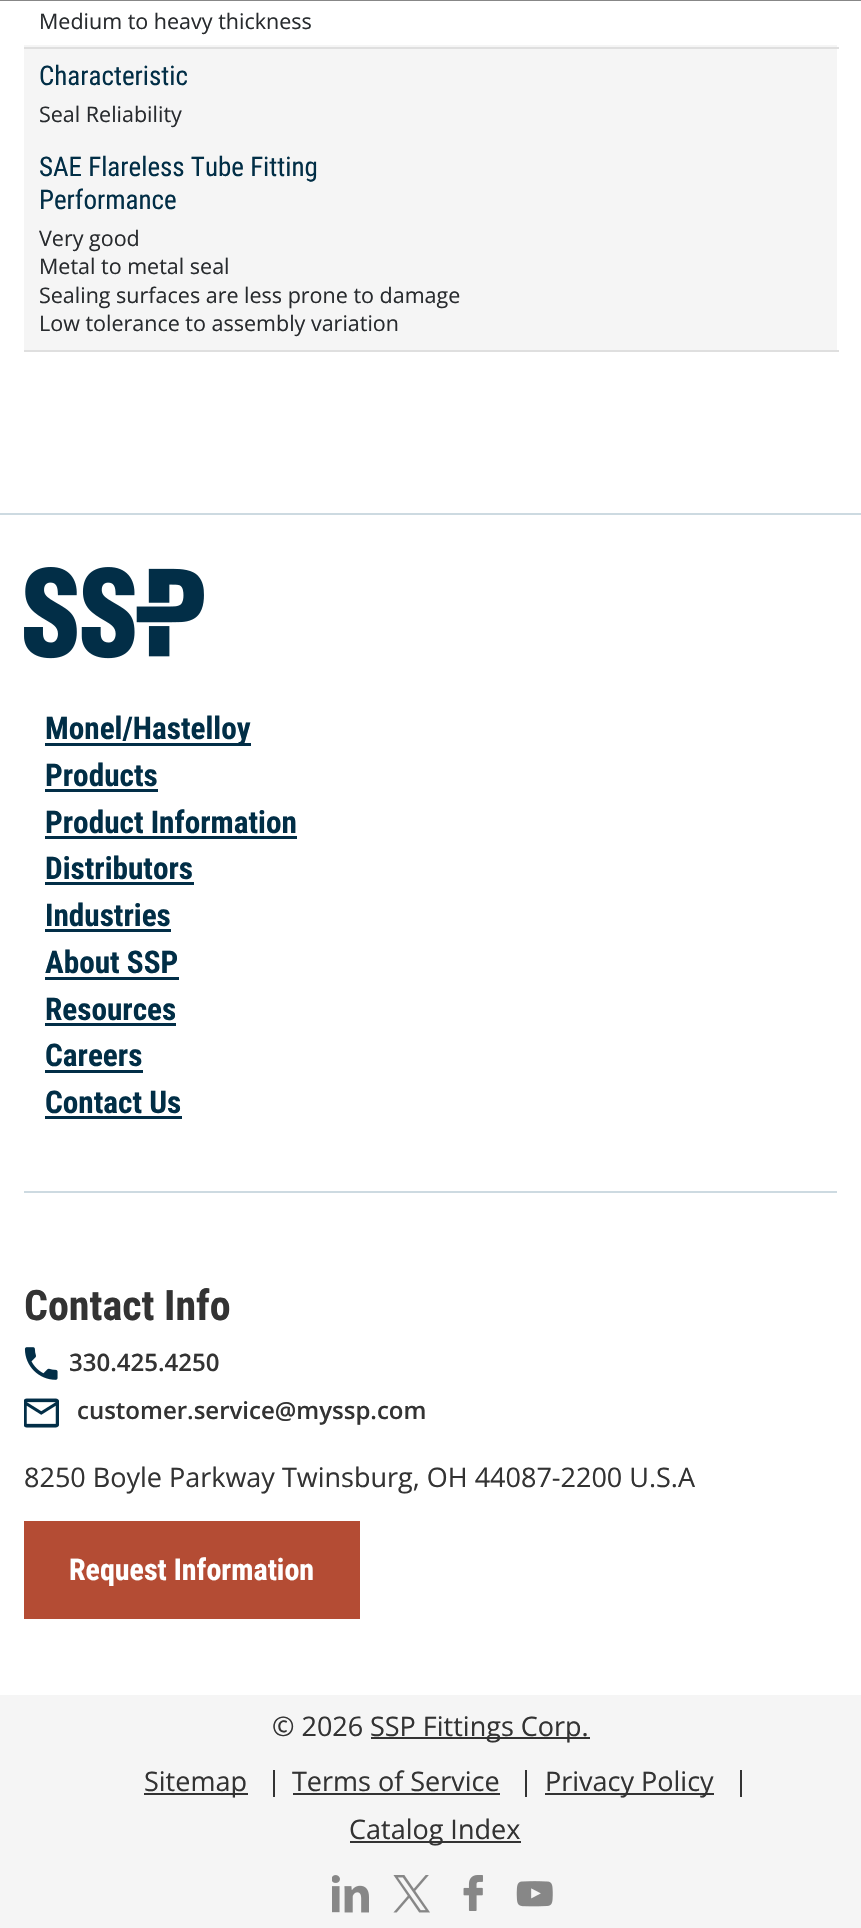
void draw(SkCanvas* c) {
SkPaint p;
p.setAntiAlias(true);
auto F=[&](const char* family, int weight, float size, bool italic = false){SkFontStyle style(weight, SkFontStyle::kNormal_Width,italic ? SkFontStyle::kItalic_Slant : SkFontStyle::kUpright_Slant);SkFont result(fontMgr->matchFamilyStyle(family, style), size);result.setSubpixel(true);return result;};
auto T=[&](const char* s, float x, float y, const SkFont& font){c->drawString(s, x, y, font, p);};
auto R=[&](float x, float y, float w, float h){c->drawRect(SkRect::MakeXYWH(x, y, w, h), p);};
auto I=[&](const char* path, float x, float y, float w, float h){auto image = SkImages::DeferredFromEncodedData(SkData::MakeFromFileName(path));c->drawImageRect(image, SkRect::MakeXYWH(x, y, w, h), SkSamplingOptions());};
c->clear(0xffffffff);
p.setColor(0x78000000);
R(0,0,861,1);
p.setColor(0xffdfdfdf);
R(24,47,815,2);
p.setColor(0xfff5f5f5);
R(24,45,813,2);
auto f1 = F("Open Sans",400,21.5);
p.setColor(0xff282b2e);
T("Medium to heavy thickness",39,29,f1);
p.setColor(0xfff5f5f5);
R(24,49,813,301);
p.setColor(0xffdfdfdf);
R(24,350,815,2);
auto f2 = F("Roboto Condensed",400,27);
p.setColor(0xff012e46);
T("Characteristic",39,85,f2);
p.setColor(0xff282b2e);
T("Seal Reliability",39,122,f1);
p.setColor(0xff012e46);
T("SAE Flareless Tube Fitting",39,176,f2);
T("Performance",39,209,f2);
p.setColor(0xff282b2e);
T("Very good",39,246,f1);
T("Metal to metal seal",39,274,f1);
T("Sealing surfaces are less prone to damage",39,303,f1);
T("Low tolerance to assembly variation",39,331,f1);
p.setColor(0xffcddae1);
R(0,513,861,2);
I("1.png",24,567,180,92);
p.setColor(0xff022e47);
R(45,743,206,3);
auto f3 = F("Roboto Condensed",700,31.25);
p.setColor(0xff012e46);
T("Monel/Hastelloy",45,739,f3);
T("Products",45,786,f3);
p.setColor(0xff022e47);
R(45,789,113,3);
p.setColor(0xff012e46);
T("Product Information",45,833,f3);
p.setColor(0xff022e47);
R(45,836,252,3);
p.setColor(0xff012e46);
T("Distributors",45,879,f3);
p.setColor(0xff022e47);
R(45,882,149,3);
p.setColor(0xff012e46);
T("Industries",45,926,f3);
p.setColor(0xff022e47);
R(45,929,126,3);
p.setColor(0xff012e46);
T("About SSP",45,973,f3);
p.setColor(0xff022e47);
R(45,977,134,3);
p.setColor(0xff012e46);
T("Resources",45,1020,f3);
p.setColor(0xff022e47);
R(45,1023,131,3);
p.setColor(0xff012e46);
T("Careers",45,1066,f3);
p.setColor(0xff022e47);
R(45,1070,98,3);
p.setColor(0xff012e46);
T("Contact Us",45,1113,f3);
p.setColor(0xff022e47);
R(45,1116,137,3);
p.setColor(0xffcddae1);
R(24,1191,813,2);
auto f4 = F("Roboto Condensed",700,42);
p.setColor(0xff333333);
T("Contact Info",24,1320,f4);
I("2.png",24,1347,34,33);
auto f5 = F("Open Sans",600,24);
T("330.425.4250",69,1371,f5);
I("3.png",24,1398,35,30);
T("customer.service@myssp.com",77,1419,f5);
auto f6 = F("Open Sans",400,27);
T("8250 Boyle Parkway Twinsburg, OH 44087-2200 U.S.A",24,1487,f6);
p.setColor(0xffb44c34);
R(24,1521,336,98);
auto f7 = F("Roboto Condensed",700,30);
p.setColor(0xffffffff);
T("Request Information",69,1580,f7);
p.setColor(0xfff5f5f5);
R(0,1695,861,233);
p.setColor(0xff333333);
T("© 2026",272,1736,f6);
R(371,1737,219,2);
T("SSP Fittings Corp.",370,1736,f6);
R(144,1793,104,2);
T("Sitemap",144,1791,f6);
R(273,1770,2,27);
T("Terms of Service",292,1791,f6);
R(293,1793,207,2);
R(525,1770,2,27);
R(545,1793,169,2);
T("Privacy Policy",545,1791,f6);
R(740,1770,2,27);
R(350,1841,171,2);
T("Catalog Index",349,1839,f6);
I("4.png",332,1875,37,38);
I("5.png",393,1875,37,38);
I("6.png",463,1875,20,36);
I("7.png",516,1881,37,26);
}
